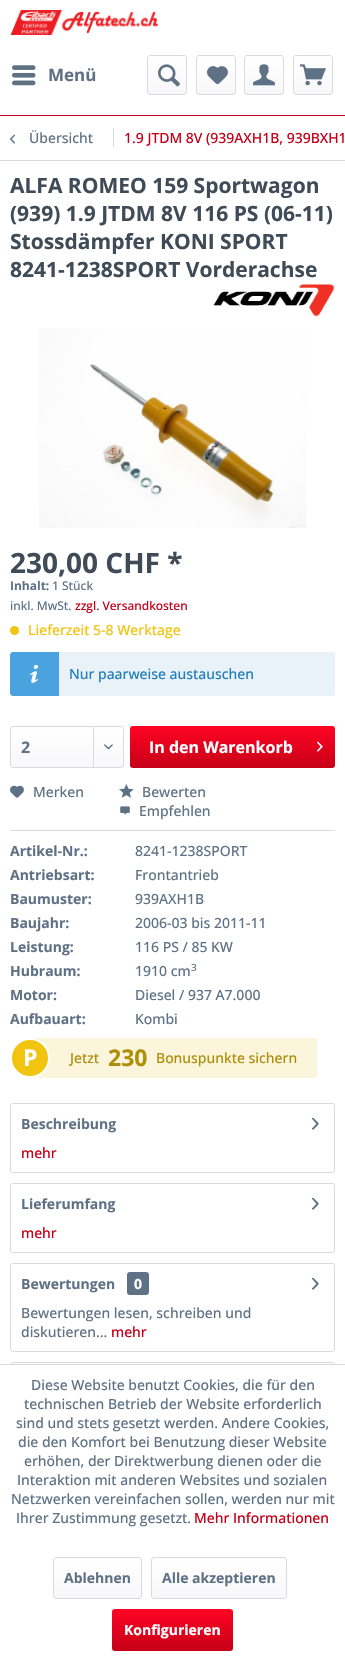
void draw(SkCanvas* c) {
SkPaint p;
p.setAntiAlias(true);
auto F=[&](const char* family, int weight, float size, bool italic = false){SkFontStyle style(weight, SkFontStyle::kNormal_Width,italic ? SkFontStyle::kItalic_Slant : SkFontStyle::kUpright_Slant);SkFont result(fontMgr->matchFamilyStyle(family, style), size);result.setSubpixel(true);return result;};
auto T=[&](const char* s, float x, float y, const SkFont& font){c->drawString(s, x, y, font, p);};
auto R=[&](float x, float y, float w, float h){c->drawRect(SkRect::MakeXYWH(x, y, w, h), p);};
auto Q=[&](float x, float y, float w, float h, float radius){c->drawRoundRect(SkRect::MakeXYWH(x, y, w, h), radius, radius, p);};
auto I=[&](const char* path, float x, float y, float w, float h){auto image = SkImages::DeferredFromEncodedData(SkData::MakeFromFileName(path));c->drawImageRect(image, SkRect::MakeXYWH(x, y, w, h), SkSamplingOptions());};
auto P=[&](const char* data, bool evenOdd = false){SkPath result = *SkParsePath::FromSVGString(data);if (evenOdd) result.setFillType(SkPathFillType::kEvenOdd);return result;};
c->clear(0xffffffff);
p.setColor(0xffc60018);
R(0,115,345,1);
I("1.png",10,10,148,25);
I("2.png",12,65,24,21);
auto f1 = F("Open Sans",700,17);
p.setColor(0xff5f7285);
T("Menü",48,81,f1);
{
const SkColor colors[] = {0xffffffff,0xfff8f8fa};
const float stops[] = {0,1};
const SkPoint ends[] = {{167,56}, {167,94}};
p.setShader(SkGradientShader::MakeLinear(ends, colors, stops, 2, SkTileMode::kClamp));
p.setAlpha(255);
}
Q(148,56,38,38,2);
p.setStroke(true);
p.setStrokeWidth(1);
p.setShader(nullptr);
p.setColor(0xffdadae5);
c->drawRoundRect(SkRect::MakeXYWH(147.5,55.5,39,39),2.5,2.5,p);
I("3.png",158,64,22,23);
p.setStroke(false);
{
const SkColor colors[] = {0xffffffff,0xfff8f8fa};
const float stops[] = {0,1};
const SkPoint ends[] = {{216,56}, {216,94}};
p.setShader(SkGradientShader::MakeLinear(ends, colors, stops, 2, SkTileMode::kClamp));
p.setAlpha(255);
}
Q(197,56,38,38,2);
p.setStroke(true);
p.setShader(nullptr);
p.setColor(0xffdadae5);
c->drawRoundRect(SkRect::MakeXYWH(196.5,55.5,39,39),2.5,2.5,p);
I("4.png",207,66,21,19);
p.setStroke(false);
{
const SkColor colors[] = {0xffffffff,0xfff8f8fa};
const float stops[] = {0,1};
const SkPoint ends[] = {{264,56}, {264,94}};
p.setShader(SkGradientShader::MakeLinear(ends, colors, stops, 2, SkTileMode::kClamp));
p.setAlpha(255);
}
Q(245,56,38,38,2);
p.setStroke(true);
p.setShader(nullptr);
p.setColor(0xffdadae5);
c->drawRoundRect(SkRect::MakeXYWH(244.5,55.5,39,39),2.5,2.5,p);
I("5.png",253,64,22,22);
p.setStroke(false);
{
const SkColor colors[] = {0xffffffff,0xfff8f8fa};
const float stops[] = {0,1};
const SkPoint ends[] = {{313,56}, {313,94}};
p.setShader(SkGradientShader::MakeLinear(ends, colors, stops, 2, SkTileMode::kClamp));
p.setAlpha(255);
}
Q(294,56,38,38,2);
p.setStroke(true);
p.setShader(nullptr);
p.setColor(0xffdadae5);
c->drawRoundRect(SkRect::MakeXYWH(293.5,55.5,39,39),2.5,2.5,p);
I("6.png",300,64,26,22);
p.setStroke(false);
R(0,160,345,1);
I("7.png",10,134,5,10);
auto f2 = F("Open Sans",500,14);
p.setColor(0xff5f7285);
T("Übersicht",29,143,f2);
p.setColor(0xffdadae5);
R(113,128,1,19);
p.setColor(0xffc60018);
T("1.9 JTDM 8V (939AXH1B, 939BXH1",124,143,f2);
auto f3 = F("Open Sans",700,21);
p.setColor(0xff3f4c58);
T("ALFA ROMEO 159 Sportwagon",10,193,f3);
T("(939) 1.9 JTDM 8V 116 PS (06-11)",10,221,f3);
T("Stossdämpfer KONI SPORT",10,249,f3);
T("8241-1238SPORT Vorderachse",10,277,f3);
I("8.png",213,284,122,33);
I("9.png",39,328,268,200);
auto f4 = F("Open Sans",700,28);
T("230,00 CHF *",10,573,f4);
auto f5 = F("Open Sans",700,12);
p.setColor(0xff5f7285);
T("Inhalt:",10,590,f5);
auto f6 = F("Open Sans",500,12);
T("1 Stück",52,590,f6);
T("inkl. MwSt.",10,610,f6);
p.setColor(0xffc60018);
T("zzgl. Versandkosten",75,610,f6);
p.setColor(0xfff1c40f);
c->drawCircle(14.5,630.5,4.5,p);
T("Lieferzeit 5-8 Werktage",28,635,f2);
p.setColor(0xffe9f2f8);
Q(10,652,325,44,3);
p.setColor(0xff4aa3df);
c->drawPath(P("M13 652h46v44h-46c-1.5 0-3-1.5-3-3v-38c0-1.5 1.5-3 3-3z"),p);
I("10.png",29,664,10,19);
p.setColor(0xff217dbb);
T("Nur paarweise austauschen",69,679,f2);
{
const SkColor colors[] = {0xffffffff,0xfff8f8fa};
const float stops[] = {0,1};
const SkPoint ends[] = {{67,727}, {67,767}};
p.setShader(SkGradientShader::MakeLinear(ends, colors, stops, 2, SkTileMode::kClamp));
p.setAlpha(255);
}
Q(11,727,112,40,2);
p.setStroke(true);
p.setShader(nullptr);
p.setColor(0xffdadae5);
c->drawRoundRect(SkRect::MakeXYWH(10.5,726.5,113,41),2.5,2.5,p);
auto f7 = F("Open Sans",700,16);
p.setStroke(false);
p.setColor(0xff5f7285);
T("2",21,753,f7);
p.setColor(0xffdadae5);
R(93,727,1,40);
I("11.png",104,744,9,6);
{
const SkColor colors[] = {0xffff0423,0xffc60018};
const float stops[] = {0,1};
const SkPoint ends[] = {{233,726}, {233,768}};
p.setShader(SkGradientShader::MakeLinear(ends, colors, stops, 2, SkTileMode::kClamp));
p.setAlpha(255);
}
Q(130,726,205,42,3);
p.setShader(nullptr);
p.setColor(0xffffffff);
T("In den Warenkorb",149,753,f7);
I("12.png",317,741,6,11);
p.setColor(0xffdadae5);
R(10,830,325,1);
I("13.png",10,785,14,13);
p.setColor(0xff5f7285);
T("Merken",33,797,f2);
I("14.png",119,784,15,14);
T("Bewerten",142,797,f2);
I("15.png",120,806,10,9);
T("Empfehlen",139,816,f2);
auto f8 = F("Open Sans",700,14);
T("Artikel-Nr.:",10,856,f8);
T("8241-1238SPORT",135,856,f2);
T("Antriebsart:",10,880,f8);
T("Frontantrieb",135,880,f2);
T("Baumuster:",10,904,f8);
T("939AXH1B",135,904,f2);
T("Baujahr:",10,928,f8);
T("2006-03 bis 2011-11",135,928,f2);
T("Leistung:",10,952,f8);
T("116 PS / 85 KW",135,952,f2);
T("Hubraum:",10,976,f8);
T("1910 cm",135,976,f2);
auto f9 = F("Open Sans",500,10);
T("3",191,971,f9);
T("Motor:",10,1000,f8);
T("Diesel / 937 A7.000",135,1000,f2);
T("Aufbauart:",10,1024,f8);
T("Kombi",135,1024,f2);
p.setColor(0xfffbf5db);
Q(30,1038,287,40,3);
p.setColor(0xfff1c40f);
c->drawCircle(30,1058,19,p);
p.setStroke(true);
p.setStrokeWidth(2);
p.setColor(0xffffffff);
c->drawCircle(30,1058,19,p);
auto f10 = F("Open Sans",700,23);
p.setStroke(false);
T("P",23,1066,f10);
p.setColor(0xffae8e0a);
T("Jetzt",70,1063,f2);
T("230",108,1066,f10);
T("Bonuspunkte sichern",156,1063,f2);
p.setStroke(true);
p.setStrokeWidth(1);
p.setColor(0xffdadae5);
c->drawRoundRect(SkRect::MakeXYWH(10.5,1103.5,324,69),2.5,2.5,p);
p.setStroke(false);
p.setColor(0xff5f7285);
T("Beschreibung",21,1129,f8);
I("16.png",312,1117,7,13);
p.setColor(0xffc60018);
T("mehr",21,1158,f2);
p.setStroke(true);
p.setColor(0xffdadae5);
c->drawRoundRect(SkRect::MakeXYWH(10.5,1183.5,324,69),2.5,2.5,p);
p.setStroke(false);
p.setColor(0xff5f7285);
T("Lieferumfang",21,1209,f8);
I("16.png",312,1197,7,13);
p.setColor(0xffc60018);
T("mehr",21,1238,f2);
p.setStroke(true);
p.setColor(0xffdadae5);
c->drawRoundRect(SkRect::MakeXYWH(10.5,1263.5,324,88),2.5,2.5,p);
p.setStroke(false);
p.setColor(0xff5f7285);
T("Bewertungen",21,1289,f8);
I("16.png",312,1277,7,13);
Q(127,1272,22,23,3);
p.setColor(0xffffffff);
T("0",134,1289,f8);
p.setColor(0xff5f7285);
T("Bewertungen lesen, schreiben und",21,1318,f2);
T("diskutieren...",21,1337,f2);
p.setColor(0xffc60018);
T("mehr",111,1337,f2);
p.setStroke(true);
p.setColor(0xffdadae5);
c->drawRoundRect(SkRect::MakeXYWH(10.5,1362.5,324,41),2.5,2.5,p);
p.setStroke(false);
p.setColor(0xffffffff);
R(10,1365,325,39);
p.setColor(0xffdadae5);
R(0,1364,345,1);
p.setColor(0xff5f7285);
T("Diese Website benutzt Cookies, die für den",31,1390,f2);
T("technischen Betrieb der Website erforderlich",24,1409,f2);
T("sind und stets gesetzt werden. Andere Cookies,",16,1428,f2);
T("die den Komfort bei Benutzung dieser Website",18,1447,f2);
T("erhöhen, der Direktwerbung dienen oder die",24,1466,f2);
T("Interaktion mit anderen Websites und sozialen",17,1485,f2);
T("Netzwerken vereinfachen sollen, werden nur mit",11,1504,f2);
T("Ihrer Zustimmung gesetzt.",16,1523,f2);
p.setColor(0xffc60018);
T("Mehr Informationen",194,1523,f2);
{
const SkColor colors[] = {0xffffffff,0xfff8f8fa};
const float stops[] = {0,1};
const SkPoint ends[] = {{98,1558}, {98,1598}};
p.setShader(SkGradientShader::MakeLinear(ends, colors, stops, 2, SkTileMode::kClamp));
p.setAlpha(255);
}
Q(54,1558,87,40,2);
p.setStroke(true);
p.setShader(nullptr);
p.setColor(0xffdadae5);
c->drawRoundRect(SkRect::MakeXYWH(53.5,1557.5,88,41),2.5,2.5,p);
p.setStroke(false);
p.setColor(0xff5f7285);
T("Ablehnen",64,1583,f8);
{
const SkColor colors[] = {0xffffffff,0xfff8f8fa};
const float stops[] = {0,1};
const SkPoint ends[] = {{219,1558}, {219,1598}};
p.setShader(SkGradientShader::MakeLinear(ends, colors, stops, 2, SkTileMode::kClamp));
p.setAlpha(255);
}
Q(152,1558,134,40,2);
p.setStroke(true);
p.setShader(nullptr);
p.setColor(0xffdadae5);
c->drawRoundRect(SkRect::MakeXYWH(151.5,1557.5,135,41),2.5,2.5,p);
p.setStroke(false);
p.setColor(0xff5f7285);
T("Alle akzeptieren",162,1583,f8);
{
const SkColor colors[] = {0xffff0423,0xffc60018};
const float stops[] = {0,1};
const SkPoint ends[] = {{173,1609}, {173,1651}};
p.setShader(SkGradientShader::MakeLinear(ends, colors, stops, 2, SkTileMode::kClamp));
p.setAlpha(255);
}
Q(112,1609,121,42,3);
p.setShader(nullptr);
p.setColor(0xffffffff);
T("Konfigurieren",124,1635,f8);
}
